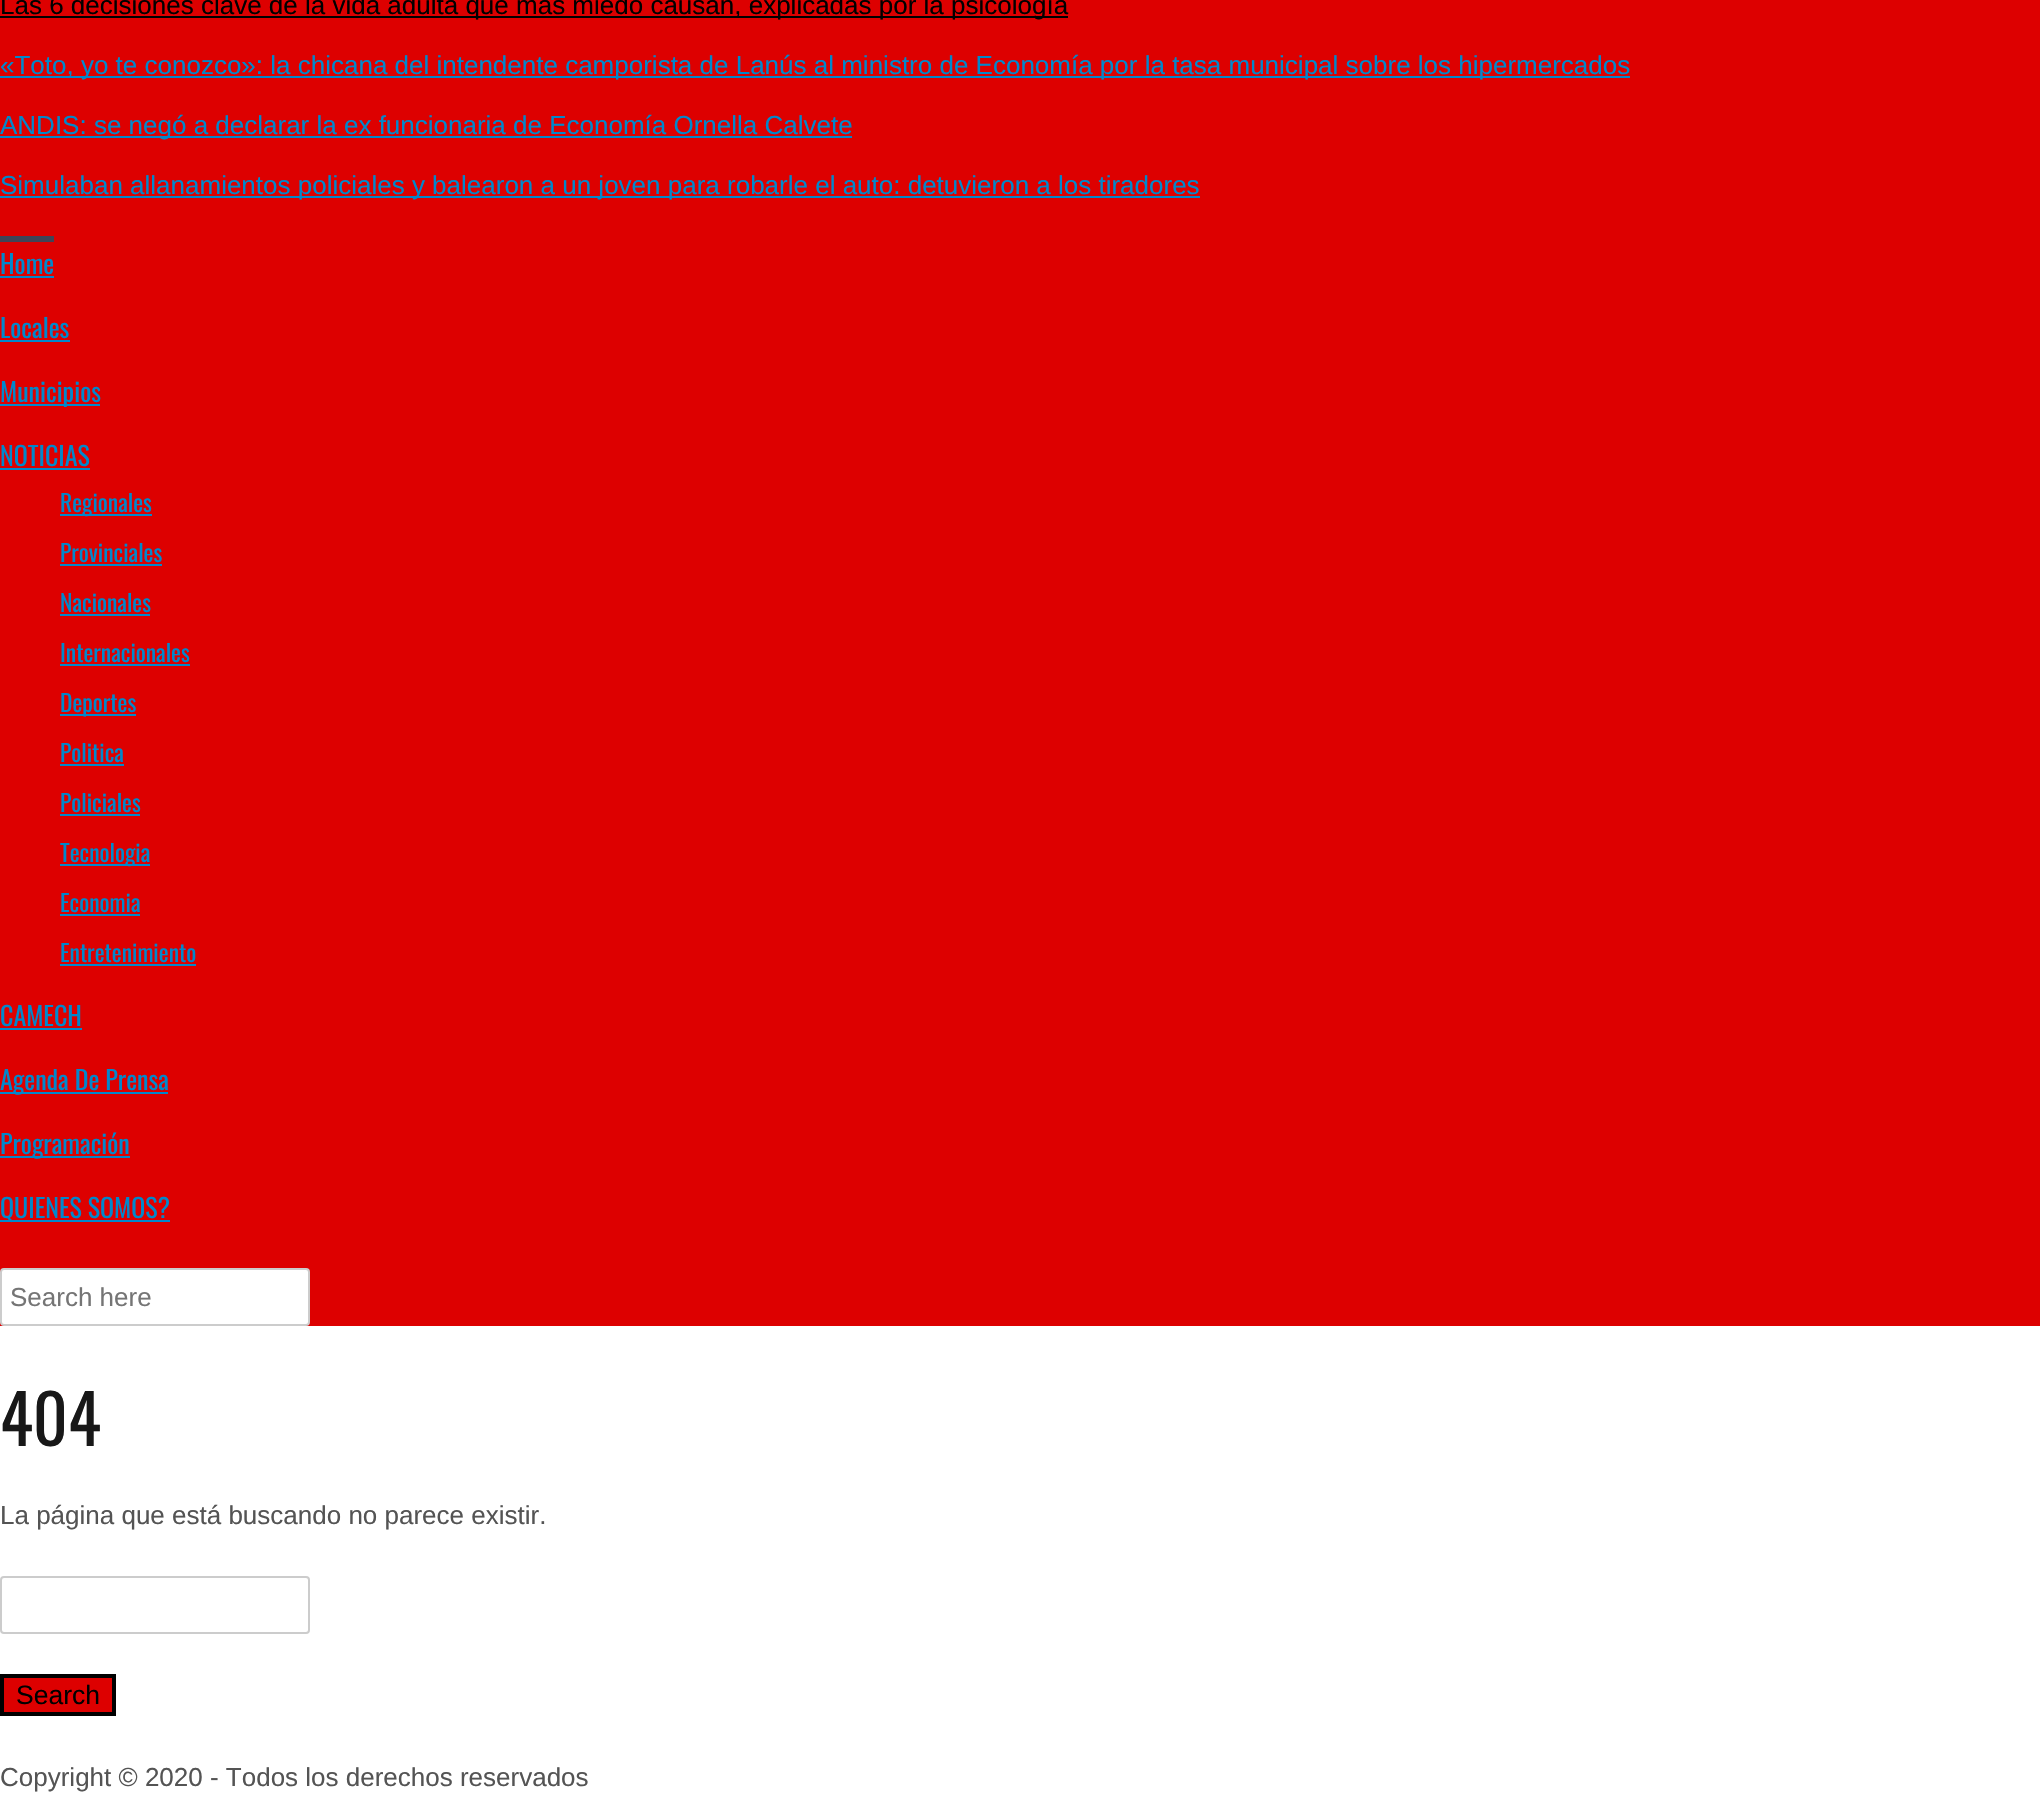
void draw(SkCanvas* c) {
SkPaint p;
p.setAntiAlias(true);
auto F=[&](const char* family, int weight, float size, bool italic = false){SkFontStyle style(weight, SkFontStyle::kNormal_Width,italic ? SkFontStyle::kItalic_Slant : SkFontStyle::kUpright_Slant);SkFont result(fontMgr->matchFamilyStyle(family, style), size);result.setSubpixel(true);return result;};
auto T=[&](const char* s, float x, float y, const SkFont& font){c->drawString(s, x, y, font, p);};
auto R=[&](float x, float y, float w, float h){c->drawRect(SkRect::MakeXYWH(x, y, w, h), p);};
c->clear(0xffffffff);
p.setColor(0xffdd0000);
R(0,0,2040,1326);
p.setColor(0xff000000);
R(0,16,1068,2);
auto f1 = F("Liberation Sans",400,26);
T("Las 6 decisiones clave de la vida adulta que más miedo causan, explicadas por la psicología",0,14,f1);
p.setColor(0xff0088cc);
R(0,76,1630,2);
T("«Toto, yo te conozco»: la chicana del intendente camporista de Lanús al ministro de Economía por la tasa municipal sobre los hipermercados",0,74,f1);
R(0,136,852,2);
T("ANDIS: se negó a declarar la ex funcionaria de Economía Ornella Calvete",0,134,f1);
R(0,196,1200,2);
T("Simulaban allanamientos policiales y balearon a un joven para robarle el auto: detuvieron a los tiradores",0,194,f1);
auto f2 = F("Oswald",400,26);
T("Home",0,274,f2);
p.setColor(0xff3f4457);
R(0,236,54,6);
p.setColor(0xff0088cc);
R(0,276,54,2);
T("Locales",0,338,f2);
R(0,340,70,2);
R(0,404,100,2);
T("Municipios",0,402,f2);
T("NOTICIAS",0,466,f2);
R(0,468,90,2);
R(60,514,92,2);
auto f3 = F("Oswald",400,23.5);
T("Regionales",60,512,f3);
T("Provinciales",60,562,f3);
R(60,564,102,2);
T("Nacionales",60,612,f3);
R(60,614,90,2);
T("Internacionales",60,662,f3);
R(60,664,130,2);
R(60,714,76,2);
T("Deportes",60,712,f3);
T("Politica",60,762,f3);
R(60,764,64,2);
T("Policiales",60,812,f3);
R(60,814,80,2);
R(60,864,90,2);
T("Tecnologia",60,862,f3);
T("Economia",60,912,f3);
R(60,914,80,2);
T("Entretenimiento",60,962,f3);
R(60,964,136,2);
T("CAMECH",0,1026,f2);
R(0,1028,82,2);
R(0,1092,168,2);
T("Agenda De Prensa",0,1090,f2);
R(0,1156,130,2);
T("Programación",0,1154,f2);
R(0,1220,170,2);
T("QUIENES SOMOS?",0,1218,f2);
p.setColor(0xffffffff);
c->drawRoundRect(SkRect::MakeXYWH(1,1269,308,56),3,3,p);
p.setStroke(true);
p.setStrokeWidth(2);
p.setColor(0xffcccccc);
c->drawRoundRect(SkRect::MakeXYWH(1,1269,308,56),3,3,p);
p.setStroke(false);
p.setColor(0xff757575);
T("Search here",10,1306,f1);
auto f4 = F("Oswald",400,68);
p.setColor(0xff181818);
T("404",0,1446,f4);
p.setColor(0xff545454);
T("La página que está buscando no parece existir.",0,1524,f1);
p.setStroke(true);
p.setColor(0xffcccccc);
c->drawRoundRect(SkRect::MakeXYWH(1,1577,308,56),3,3,p);
p.setStroke(false);
p.setColor(0xffdd0000);
c->drawRect(SkRect::MakeXYWH(2,1676,112,38),p);
p.setStroke(true);
p.setStrokeWidth(4);
p.setColor(0xff000000);
c->drawRect(SkRect::MakeXYWH(2,1676,112,38),p);
auto f5 = F("Liberation Sans",400,26.5);
p.setStroke(false);
T("Search",16,1704,f5);
p.setColor(0xff545454);
T("Copyright © 2020 - Todos los derechos reservados",0,1786,f1);
}
